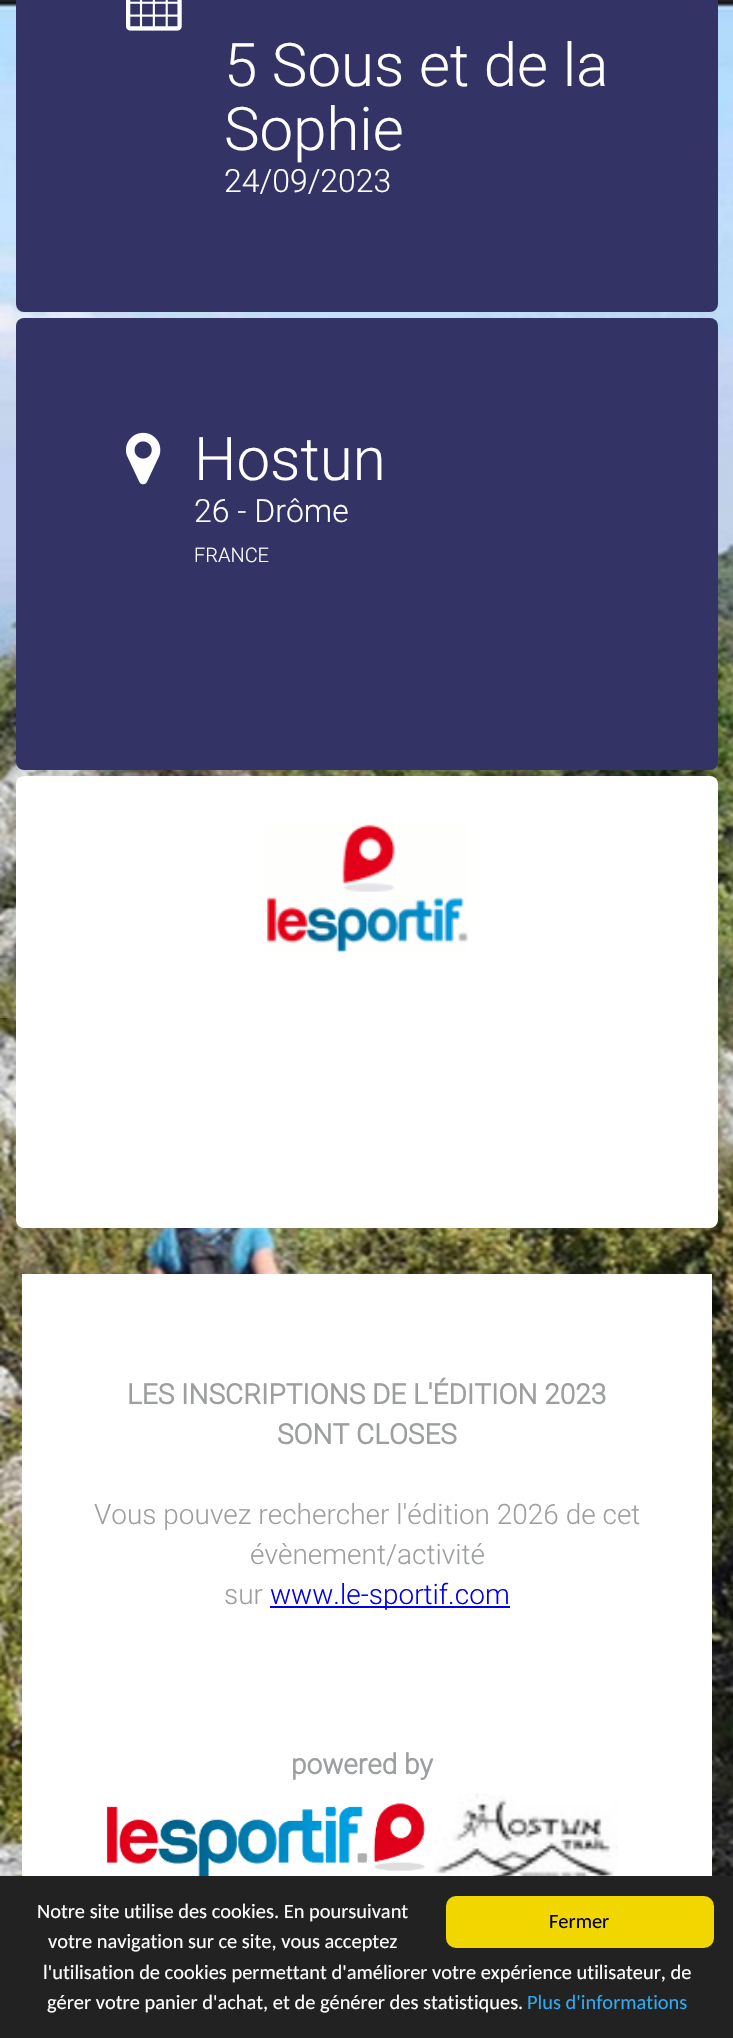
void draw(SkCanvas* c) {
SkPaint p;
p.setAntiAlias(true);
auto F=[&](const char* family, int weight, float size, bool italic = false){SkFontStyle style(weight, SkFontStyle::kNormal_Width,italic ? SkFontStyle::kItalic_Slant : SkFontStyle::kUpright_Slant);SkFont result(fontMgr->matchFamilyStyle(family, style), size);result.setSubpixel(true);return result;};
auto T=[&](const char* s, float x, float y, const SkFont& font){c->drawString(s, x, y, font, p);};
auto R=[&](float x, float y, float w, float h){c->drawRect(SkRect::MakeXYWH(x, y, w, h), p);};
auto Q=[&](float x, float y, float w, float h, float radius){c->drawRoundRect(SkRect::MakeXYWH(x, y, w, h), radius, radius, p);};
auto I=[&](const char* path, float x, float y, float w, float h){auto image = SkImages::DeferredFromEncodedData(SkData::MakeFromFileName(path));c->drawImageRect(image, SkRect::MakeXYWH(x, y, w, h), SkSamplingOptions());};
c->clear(0xffffffff);
I("1.png",0,0,733,1876);
p.setColor(0xff333366);
Q(16,-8,702,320,8);
I("2.png",126,0,56,31);
auto f1 = F("Roboto",300,60);
p.setColor(0xffffffff);
T("5 Sous et de la",224,86,f1);
T("Sophie",224,150,f1);
auto f2 = F("Roboto",300,32);
T("24/09/2023",224,192,f2);
p.setColor(0xff333366);
Q(16,318,702,452,8);
I("3.png",126,432,35,53);
p.setColor(0xffffffff);
T("Hostun",194,480,f1);
T("26 - Drôme",194,522,f2);
auto f3 = F("Roboto",300,20);
T("FRANCE",194,562,f3);
Q(16,776,702,452,8);
I("4.png",265,823,204,130);
R(22,1274,690,602);
auto f4 = F("Roboto",700,28);
p.setColor(0xff9c9e9f);
T("LES INSCRIPTIONS DE L'ÉDITION 2023",127,1404,f4);
T("SONT CLOSES",277,1444,f4);
auto f5 = F("Roboto",300,28);
T("Vous pouvez rechercher l'édition 2026 de cet",94,1524,f5);
T("évènement/activité",250,1564,f5);
T("sur",224,1604,f5);
p.setColor(0xff0000ee);
R(270,1606,240,2);
T("www.le-sportif.com",270,1604,f5);
p.setColor(0xff9c9e9f);
T("powered by",291,1774,f4);
I("5.png",106,1803,319,73);
I("6.png",434,1793,184,83);
p.setColor(0xff222222);
R(0,1876,733,162);
auto f6 = F("Carlito",400,20.4);
p.setColor(0xffffffff);
T("Notre site utilise des cookies. En poursuivant",37,1918,f6);
T("votre navigation sur ce site, vous acceptez",48,1948,f6);
T("l'utilisation de cookies permettant d'améliorer votre expérience utilisateur, de",43,1979,f6);
T("gérer votre panier d'achat, et de générer des statistiques.",47,2009,f6);
p.setColor(0xff31a8f0);
T("Plus d'informations",527,2009,f6);
p.setColor(0xfff1d600);
Q(446,1896,268,52,10);
p.setColor(0xff000000);
T("Fermer",549,1928,f6);
}
